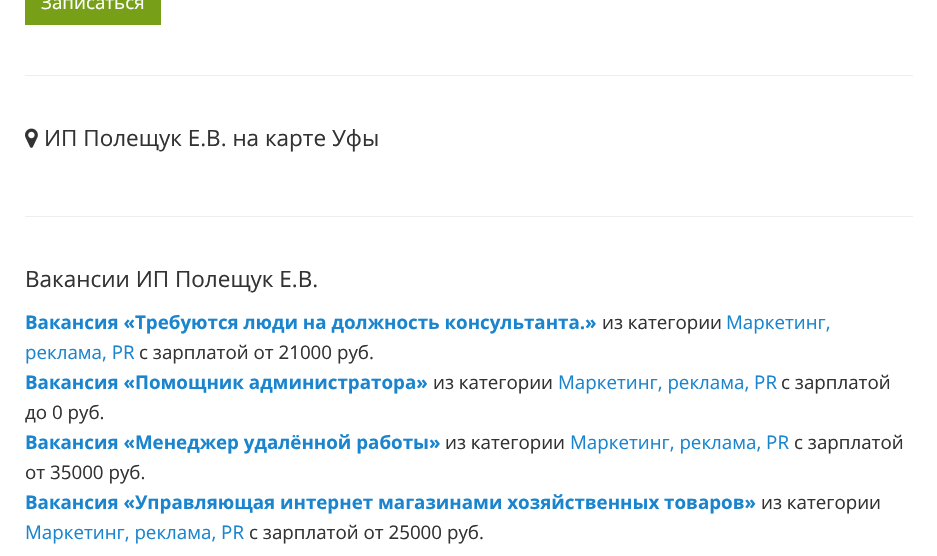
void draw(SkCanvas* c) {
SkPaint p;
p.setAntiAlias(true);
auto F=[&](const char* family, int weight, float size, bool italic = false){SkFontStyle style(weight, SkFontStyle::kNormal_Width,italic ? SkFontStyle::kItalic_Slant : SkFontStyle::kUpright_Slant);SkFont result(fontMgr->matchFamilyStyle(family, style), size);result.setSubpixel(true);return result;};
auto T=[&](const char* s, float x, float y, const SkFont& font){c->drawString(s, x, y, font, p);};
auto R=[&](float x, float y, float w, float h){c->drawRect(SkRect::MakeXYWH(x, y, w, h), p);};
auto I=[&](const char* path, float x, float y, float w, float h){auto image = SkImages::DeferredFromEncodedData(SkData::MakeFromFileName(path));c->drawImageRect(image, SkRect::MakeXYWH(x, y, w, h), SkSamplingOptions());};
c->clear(0xffffffff);
p.setColor(0xff77a018);
R(25,0,136,25);
auto f1 = F("Open Sans",400,18.75);
p.setColor(0xffffffff);
T("Записаться",41,9,f1);
p.setColor(0xffeeeeee);
R(25,75,888,1);
I("1.png",25,128,13,20);
auto f2 = F("Open Sans",400,22.5);
p.setColor(0xff333333);
T("ИП Полещук Е.В. на карте Уфы",44,146,f2);
p.setColor(0xffeeeeee);
R(25,216,888,1);
p.setColor(0xff333333);
T("Вакансии ИП Полещук Е.В.",25,287,f2);
auto f3 = F("Open Sans",700,18.75);
p.setColor(0xff1a85ce);
T("Вакансия «Требуются люди на должность консультанта.»",25,329,f3);
p.setColor(0xff333333);
T("из категории",602,329,f1);
p.setColor(0xff1a85ce);
T("Маркетинг,",726,329,f1);
T("реклама, PR",25,359,f1);
p.setColor(0xff333333);
T("с зарплатой от 21000 руб.",139,359,f1);
p.setColor(0xff1a85ce);
T("Вакансия «Помощник администратора»",25,389,f3);
p.setColor(0xff333333);
T("из категории",433,389,f1);
p.setColor(0xff1a85ce);
T("Маркетинг, реклама, PR",558,389,f1);
p.setColor(0xff333333);
T("с зарплатой",781,389,f1);
T("до 0 руб.",25,419,f1);
p.setColor(0xff1a85ce);
T("Вакансия «Менеджер удалённой работы»",25,449,f3);
p.setColor(0xff333333);
T("из категории",445,449,f1);
p.setColor(0xff1a85ce);
T("Маркетинг, реклама, PR",570,449,f1);
p.setColor(0xff333333);
T("с зарплатой",794,449,f1);
T("от 35000 руб.",25,479,f1);
p.setColor(0xff1a85ce);
T("Вакансия «Управляющая интернет магазинами хозяйственных товаров»",25,509,f3);
p.setColor(0xff333333);
T("из категории",761,509,f1);
p.setColor(0xff1a85ce);
T("Маркетинг, реклама, PR",25,539,f1);
p.setColor(0xff333333);
T("с зарплатой от 25000 руб.",249,539,f1);
}
